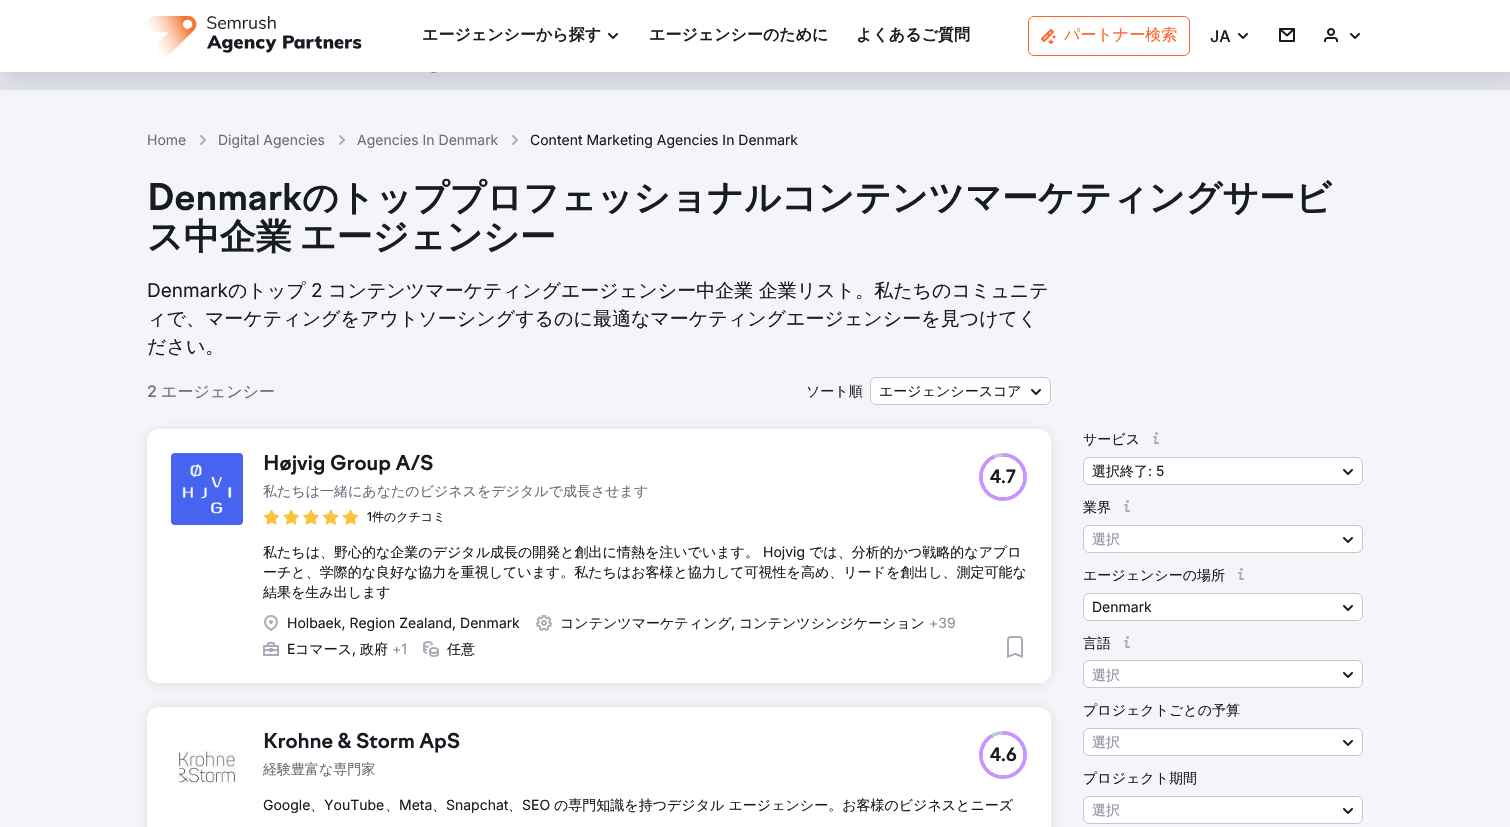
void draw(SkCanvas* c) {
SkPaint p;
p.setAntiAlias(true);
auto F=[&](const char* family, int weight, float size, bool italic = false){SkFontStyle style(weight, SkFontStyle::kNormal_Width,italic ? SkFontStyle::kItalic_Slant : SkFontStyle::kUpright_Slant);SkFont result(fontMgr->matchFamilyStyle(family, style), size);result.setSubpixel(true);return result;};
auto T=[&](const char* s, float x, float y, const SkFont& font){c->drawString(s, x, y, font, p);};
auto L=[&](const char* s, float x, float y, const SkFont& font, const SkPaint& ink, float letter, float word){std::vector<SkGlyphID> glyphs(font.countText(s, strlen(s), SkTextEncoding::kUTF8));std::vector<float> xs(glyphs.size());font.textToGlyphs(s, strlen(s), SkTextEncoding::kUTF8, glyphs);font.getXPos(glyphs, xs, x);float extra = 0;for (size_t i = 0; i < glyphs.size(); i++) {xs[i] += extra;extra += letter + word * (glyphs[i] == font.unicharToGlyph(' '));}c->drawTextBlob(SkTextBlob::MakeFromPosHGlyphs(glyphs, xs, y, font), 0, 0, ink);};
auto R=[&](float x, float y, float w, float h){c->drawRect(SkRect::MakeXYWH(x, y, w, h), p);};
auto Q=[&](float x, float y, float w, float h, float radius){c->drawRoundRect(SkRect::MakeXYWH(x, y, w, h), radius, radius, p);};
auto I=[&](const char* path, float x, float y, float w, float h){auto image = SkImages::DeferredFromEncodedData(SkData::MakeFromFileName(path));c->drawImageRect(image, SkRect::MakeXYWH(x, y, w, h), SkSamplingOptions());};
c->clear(0xffe0e1e9);
I("6.png",430,72,7,1);
p.setColor(0xfff4f5f9);
R(0,90,1510,737);
p.setColor(0x4d898d9a);
p.setMaskFilter(SkMaskFilter::MakeBlur(kNormal_SkBlurStyle, 12.5));
c->drawRect(SkRect::MakeXYWH(5,5,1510,72),p);
p.setMaskFilter(nullptr);
p.setColor(0xffffffff);
R(0,0,1510,72);
I("1.png",147,16,215,40);
auto f1 = F("WenQuanYi Zen Hei",700,16);
p.setColor(0xff191b23);
T("エージェンシーから探す",422,40,f1);
I("2.png",608,33,10,6);
T("エージェンシーのために",649,40,f1);
T("よくあるご質問",856,40,f1);
p.setStroke(true);
p.setStrokeWidth(1);
p.setColor(0xffff642d);
c->drawRoundRect(SkRect::MakeXYWH(1028.5,16.5,161,39),5.5,5.5,p);
I("3.png",1041,29,15,15);
auto f2 = F("WenQuanYi Zen Hei",500,16);
p.setStroke(false);
T("パートナー検索",1064,40,f2);
auto f3 = F("Inter",500,16);
p.setColor(0xff191b23);
T("JA",1210,42,f3);
I("2.png",1238,33,10,6);
I("4.png",1279,28,16,14);
I("5.png",1324,28,14,14);
I("2.png",1350,33,10,6);
auto f4 = F("Inter",400,14);
p.setColor(0xff6c6e79);
T("Home",147,145,f4);
I("7.png",200,135,6,10);
T("Digital Agencies",218,145,f4);
I("7.png",339,135,6,10);
T("Agencies In Denmark",357,145,f4);
I("7.png",512,135,6,10);
p.setColor(0xff191b23);
T("Content Marketing Agencies In Denmark",530,145,f4);
auto f5 = F("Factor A",700,36);
T("Denmark",147,210,f5);
auto f6 = F("WenQuanYi Zen Hei",700,36);
T("のトッププロフェッショナルコンテンツマーケティングサービ",302,210,f6);
L("ス中企業 エージェンシー",147,249,f6,p,0,-3);
auto f7 = F("Inter",400,19);
T("Denmark",147,297,f7);
auto f8 = F("WenQuanYi Zen Hei",500,19);
T("のトップ",228,297,f8);
T("2",311,297,f7);
T("コンテンツマーケティングエージェンシー中企業 企業リスト。私たちのコミュニテ",328,297,f8);
T("ィで、マーケティングをアウトソーシングするのに最適なマーケティングエージェンシーを見つけてく",147,325,f8);
T("ださい。",147,353,f8);
p.setColor(0xff6c6e79);
T("2",147,397,f3);
T("エージェンシー",161,397,f2);
auto f9 = F("WenQuanYi Zen Hei",500,14);
p.setColor(0xff191b23);
T("ソート順",806,396,f9);
p.setColor(0xffffffff);
c->drawRoundRect(SkRect::MakeXYWH(870.5,377.5,180,27),5.5,5.5,p);
p.setStroke(true);
p.setColor(0xffc4c7cf);
c->drawRoundRect(SkRect::MakeXYWH(870.5,377.5,180,27),5.5,5.5,p);
p.setStroke(false);
p.setColor(0xff191b23);
T("エージェンシースコア",879,396,f9);
I("2.png",1031,389,10,6);
p.setColor(0x1a191b23);
p.setMaskFilter(SkMaskFilter::MakeBlur(kNormal_SkBlurStyle, 6));
c->drawRoundRect(SkRect::MakeXYWH(147,430,904,254),12,12,p);
p.setMaskFilter(nullptr);
p.setColor(0xffffffff);
Q(147,429,904,254,12);
I("8.png",171,453,72,72);
auto f10 = F("Factor A",700,20);
p.setColor(0xff191b23);
T("Højvig Group A/S",263,470,f10);
p.setColor(0xff6c6e79);
T("私たちは一緒にあなたのビジネスをデジタルで成長させます",263,496,f9);
I("9.png",263,509,96,16);
auto f11 = F("Inter",500,12);
p.setColor(0xff191b23);
T("1",367,521,f11);
auto f12 = F("WenQuanYi Zen Hei",500,12);
T("件のクチコミ",372,521,f12);
I("10.png",979,453,48,48);
{
const SkColor colors[] = {0xffffffff,0x00ffffff,0x00000000};
const float stops[] = {.84,.85,1};
p.setShader(SkGradientShader::MakeRadial({1003,477}, 24, colors, stops, 3, SkTileMode::kClamp));
p.setAlpha(255);
}
R(983,457,40,40);
auto f13 = F("Factor A",700,18);
p.setShader(nullptr);
p.setColor(0xff191b23);
T("4.7",990,483,f13);
T("私たちは、野心的な企業のデジタル成長の開発と創出に情熱を注いでいます。",263,557,f9);
T("Hojvig",763,557,f4);
T("では、分析的かつ戦略的なアプロ",809,557,f9);
T("ーチと、学際的な良好な協力を重視しています。私たちはお客様と協力して可視性を高め、リードを創出し、測定可能な",263,577,f9);
T("結果を生み出します",263,597,f9);
I("11.png",264,615,14,16);
T("Holbaek, Region Zealand, Denmark",287,628,f4);
I("12.png",536,615,16,16);
T("コンテンツマーケティング",560,628,f9);
T(",",731,628,f4);
T("コンテンツシンジケーション",739,628,f9);
p.setColor(0xff8a8e9b);
T("+39",929,628,f4);
I("13.png",263,642,16,14);
p.setColor(0xff191b23);
T("E",287,654,f4);
T("コマース",295,654,f9);
T(",",352,654,f4);
T("政府",360,654,f9);
p.setColor(0xff8a8e9b);
T("+1",392,654,f4);
I("14.png",423,641,16,16);
p.setColor(0xff191b23);
T("任意",447,654,f9);
I("15.png",1007,636,16,22);
p.setColor(0x1a191b23);
p.setMaskFilter(SkMaskFilter::MakeBlur(kNormal_SkBlurStyle, 6));
c->drawRoundRect(SkRect::MakeXYWH(147,708,904,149),12,12,p);
p.setMaskFilter(nullptr);
p.setColor(0xffffffff);
Q(147,707,904,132,12);
I("16.png",177,750,60,34);
p.setColor(0xff191b23);
T("Krohne & Storm ApS",263,748,f10);
p.setColor(0xff6c6e79);
T("経験豊富な専門家",263,774,f9);
I("17.png",979,731,48,48);
{
const SkColor colors[] = {0xffffffff,0x00ffffff,0x00000000};
const float stops[] = {.84,.85,1};
p.setShader(SkGradientShader::MakeRadial({1003,755}, 24, colors, stops, 3, SkTileMode::kClamp));
p.setAlpha(255);
}
R(983,735,40,40);
p.setShader(nullptr);
p.setColor(0xff191b23);
T("4.6",990,761,f13);
T("Google",263,810,f4);
T("、",310,810,f9);
T("YouTube",324,810,f4);
T("、",385,810,f9);
T("Meta",399,810,f4);
T("、",432,810,f9);
T("Snapchat",446,810,f4);
T("、",508,810,f9);
T("SEO",522,810,f4);
T("の専門知識を持つデジタル エージェンシー。お客様のビジネスとニーズ",554,810,f9);
T("サービス",1083,444,f9);
I("18.png",1153,432,6,12);
p.setColor(0xffffffff);
c->drawRoundRect(SkRect::MakeXYWH(1083.5,457.5,279,27),5.5,5.5,p);
p.setStroke(true);
p.setColor(0xffc4c7cf);
c->drawRoundRect(SkRect::MakeXYWH(1083.5,457.5,279,27),5.5,5.5,p);
p.setStroke(false);
p.setColor(0xff191b23);
T("選択終了",1092,476,f9);
T(": 5",1148,476,f4);
I("2.png",1343,469,10,6);
T("業界",1083,512,f9);
I("18.png",1124,500,6,12);
p.setColor(0xffffffff);
c->drawRoundRect(SkRect::MakeXYWH(1083.5,525.5,279,27),5.5,5.5,p);
p.setStroke(true);
p.setColor(0xffc4c7cf);
c->drawRoundRect(SkRect::MakeXYWH(1083.5,525.5,279,27),5.5,5.5,p);
p.setStroke(false);
p.setColor(0xff8a8e9b);
T("選択",1092,544,f9);
I("2.png",1343,537,10,6);
p.setColor(0xff191b23);
T("エージェンシーの場所",1083,580,f9);
I("18.png",1238,568,6,12);
p.setColor(0xffffffff);
c->drawRoundRect(SkRect::MakeXYWH(1083.5,593.5,279,27),5.5,5.5,p);
p.setStroke(true);
p.setColor(0xffc4c7cf);
c->drawRoundRect(SkRect::MakeXYWH(1083.5,593.5,279,27),5.5,5.5,p);
p.setStroke(false);
p.setColor(0xff191b23);
T("Denmark",1092,612,f4);
I("2.png",1343,605,10,6);
T("言語",1083,648,f9);
I("18.png",1124,636,6,12);
p.setColor(0xffffffff);
c->drawRoundRect(SkRect::MakeXYWH(1083.5,660.5,279,27),5.5,5.5,p);
p.setStroke(true);
p.setColor(0xffc4c7cf);
c->drawRoundRect(SkRect::MakeXYWH(1083.5,660.5,279,27),5.5,5.5,p);
p.setStroke(false);
p.setColor(0xff8a8e9b);
T("選択",1092,680,f9);
I("2.png",1343,672,10,6);
p.setColor(0xff191b23);
T("プロジェクトごとの予算",1083,715,f9);
p.setColor(0xffffffff);
c->drawRoundRect(SkRect::MakeXYWH(1083.5,728.5,279,27),5.5,5.5,p);
p.setStroke(true);
p.setColor(0xffc4c7cf);
c->drawRoundRect(SkRect::MakeXYWH(1083.5,728.5,279,27),5.5,5.5,p);
p.setStroke(false);
p.setColor(0xff8a8e9b);
T("選択",1092,747,f9);
I("2.png",1343,740,10,6);
p.setColor(0xff191b23);
T("プロジェクト期間",1083,783,f9);
p.setColor(0xffffffff);
c->drawRoundRect(SkRect::MakeXYWH(1083.5,796.5,279,27),5.5,5.5,p);
p.setStroke(true);
p.setColor(0xffc4c7cf);
c->drawRoundRect(SkRect::MakeXYWH(1083.5,796.5,279,27),5.5,5.5,p);
p.setStroke(false);
p.setColor(0xff8a8e9b);
T("選択",1092,815,f9);
I("2.png",1343,808,10,6);
}
